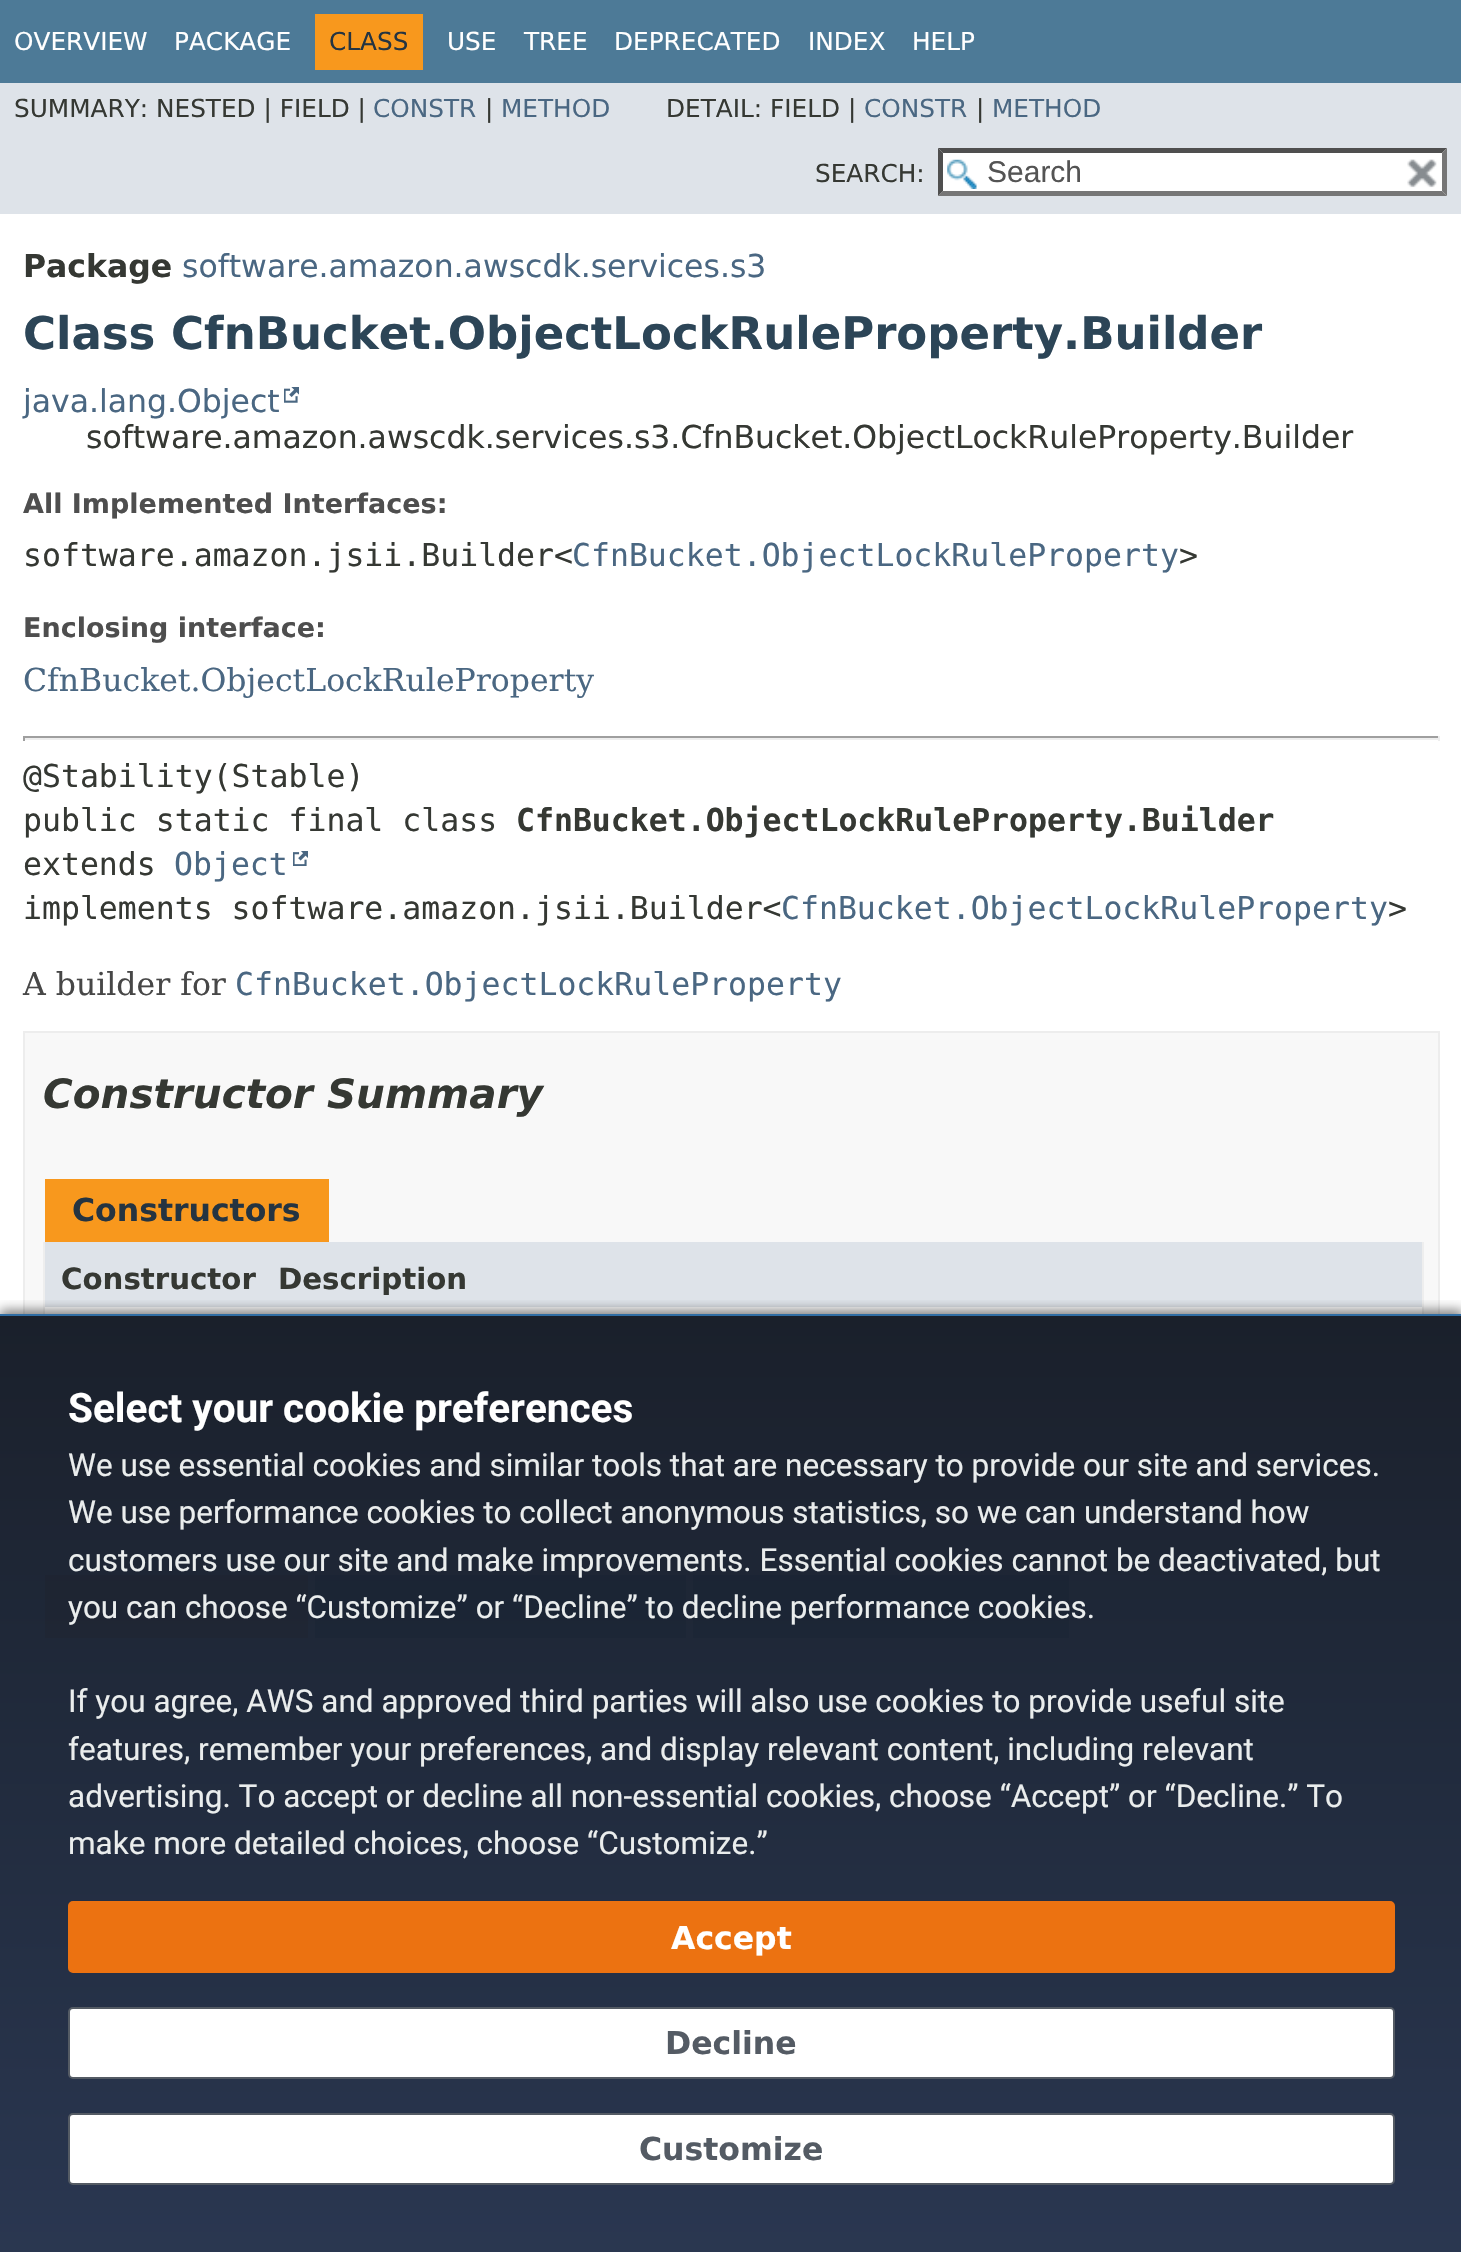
void draw(SkCanvas* c) {
SkPaint p;
p.setAntiAlias(true);
auto F=[&](const char* family, int weight, float size, bool italic = false){SkFontStyle style(weight, SkFontStyle::kNormal_Width,italic ? SkFontStyle::kItalic_Slant : SkFontStyle::kUpright_Slant);SkFont result(fontMgr->matchFamilyStyle(family, style), size);result.setSubpixel(true);return result;};
auto T=[&](const char* s, float x, float y, const SkFont& font){c->drawString(s, x, y, font, p);};
auto R=[&](float x, float y, float w, float h){c->drawRect(SkRect::MakeXYWH(x, y, w, h), p);};
auto I=[&](const char* path, float x, float y, float w, float h){auto image = SkImages::DeferredFromEncodedData(SkData::MakeFromFileName(path));c->drawImageRect(image, SkRect::MakeXYWH(x, y, w, h), SkSamplingOptions());};
auto P=[&](const char* data, bool evenOdd = false){SkPath result = *SkParsePath::FromSVGString(data);if (evenOdd) result.setFillType(SkPathFillType::kEvenOdd);return result;};
c->clear(0xffffffff);
p.setColor(0xff4d7a97);
R(0,0,1461,83);
auto f1 = F("DejaVu Sans",400,24.75);
p.setColor(0xffffffff);
T("OVERVIEW",14,50,f1);
T("PACKAGE",174,50,f1);
p.setColor(0xfff8981d);
R(315,14,108,56);
p.setColor(0xff253441);
T("CLASS",329,50,f1);
p.setColor(0xffffffff);
T("USE",447,50,f1);
T("TREE",524,50,f1);
T("DEPRECATED",614,50,f1);
T("INDEX",808,50,f1);
T("HELP",912,50,f1);
p.setColor(0xffdee3e9);
R(0,83,1461,131);
p.setColor(0xff353833);
T("SUMMARY: NESTED | FIELD |",14,117,f1);
p.setColor(0xff4a6782);
T("CONSTR",373,117,f1);
p.setColor(0xff353833);
T("|",485,117,f1);
p.setColor(0xff4a6782);
T("METHOD",501,117,f1);
p.setColor(0xff353833);
T("DETAIL: FIELD |",666,117,f1);
p.setColor(0xff4a6782);
T("CONSTR",864,117,f1);
p.setColor(0xff353833);
T("|",976,117,f1);
p.setColor(0xff4a6782);
T("METHOD",992,117,f1);
p.setColor(0xff353833);
T("SEARCH:",815,182,f1);
p.setColor(0xffffffff);
R(938,149,509,47);
I("1.png",947,159,30,30);
p.setColor(0xff4f4f4f);
c->drawPath(P("M938 148h509l-5 5h-499z"),p);
p.setColor(0xff767676);
c->drawPath(P("M1447 148v48l-5-5v-38z"),p);
c->drawPath(P("M1447 196h-509l5-5h499z"),p);
p.setColor(0xff4f4f4f);
c->drawPath(P("M938 196v-48l5 5v38z"),p);
auto f2 = F("Liberation Sans",400,30);
p.setColor(0xff545454);
T("Search",987,182,f2);
I("2.png",1407,159,30,29);
auto f3 = F("DejaVu Sans",700,31.5);
p.setColor(0xff353833);
T("Package",23,277,f3);
auto f4 = F("DejaVu Sans",400,31.5);
p.setColor(0xff4a6782);
T("software.amazon.awscdk.services.s3",182,277,f4);
auto f5 = F("DejaVu Sans",700,45);
p.setColor(0xff2c4557);
T("Class CfnBucket.ObjectLockRuleProperty.Builder",23,349,f5);
p.setColor(0xff4a6782);
T("java.lang.Object",23,412,f4);
I("3.png",284,387,15,16);
p.setColor(0xff353833);
T("software.amazon.awscdk.services.s3.CfnBucket.ObjectLockRuleProperty.Builder",86,448,f4);
auto f6 = F("DejaVu Sans",700,27);
p.setColor(0xff4e4e4e);
T("All Implemented Interfaces:",23,513,f6);
auto f7 = F("DejaVu Sans Mono",400,31.5);
p.setColor(0xff353833);
T("software.amazon.jsii.Builder<",23,566,f7);
p.setColor(0xff4a6782);
T("CfnBucket.ObjectLockRuleProperty",572,566,f7);
p.setColor(0xff353833);
T(">",1179,566,f7);
p.setColor(0xff4e4e4e);
T("Enclosing interface:",23,637,f6);
auto f8 = F("DejaVu Serif",400,31.5);
p.setColor(0xff4a6782);
T("CfnBucket.ObjectLockRuleProperty",23,691,f8);
p.setColor(0xff9f9f9f);
R(23,736,1417,2);
p.setColor(0xffeeeeee);
R(1438,736,2,5);
R(23,738,1417,2);
p.setColor(0xff9f9f9f);
R(23,736,2,5);
p.setColor(0xff353833);
T("@Stability(Stable)",23,787,f7);
T("public static final class",23,831,f7);
auto f9 = F("DejaVu Sans Mono",700,31.5);
T("CfnBucket.ObjectLockRuleProperty.Builder",516,831,f9);
T("extends",23,875,f7);
p.setColor(0xff4a6782);
T("Object",174,875,f7);
I("4.png",293,851,15,15);
p.setColor(0xff353833);
T("implements software.amazon.jsii.Builder<",23,919,f7);
p.setColor(0xff4a6782);
T("CfnBucket.ObjectLockRuleProperty",781,919,f7);
p.setColor(0xff353833);
T(">",1388,919,f7);
p.setColor(0xff474747);
T("A builder for",23,995,f8);
p.setColor(0xff4a6782);
T("CfnBucket.ObjectLockRuleProperty",235,995,f7);
p.setColor(0xfff8f8f8);
c->drawRect(SkRect::MakeXYWH(24,1032,1415,360),p);
p.setStroke(true);
p.setStrokeWidth(2);
p.setColor(0xffededed);
c->drawRect(SkRect::MakeXYWH(24,1032,1415,360),p);
auto f10 = F("DejaVu Sans",700,40.5,true);
p.setStroke(false);
p.setColor(0xff353833);
T("Constructor Summary",43,1108,f10);
p.setColor(0xfff8981d);
R(45,1179,284,63);
p.setColor(0xff253441);
T("Constructors",72,1221,f3);
p.setColor(0xffeeeeee);
R(1422,1242,2,137);
R(43,1377,1381,2);
R(43,1242,2,137);
p.setColor(0xffdee3e9);
R(45,1242,1377,65);
auto f11 = F("DejaVu Sans",700,29.25);
p.setColor(0xff353833);
T("Constructor",61,1289,f11);
T("Description",278,1289,f11);
p.setColor(0xffffffff);
R(45,1307,1377,70);
p.setColor(0xfff8f8f8);
c->drawRect(SkRect::MakeXYWH(24,1428,1415,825),p);
p.setStroke(true);
p.setColor(0xffededed);
c->drawRect(SkRect::MakeXYWH(24,1428,1415,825),p);
p.setStroke(false);
p.setColor(0xfff8981d);
R(45,1575,263,63);
p.setColor(0xff4d7a97);
R(315,1575,371,63);
R(693,1575,376,63);
p.setColor(0xffeeeeee);
R(1422,1638,2,614);
R(43,1638,2,614);
p.setColor(0xffdee3e9);
R(45,1638,1377,65);
R(45,1703,1377,66);
p.setColor(0xffffffff);
R(45,1769,1377,69);
R(45,1838,1377,79);
p.setColor(0xffeeeeef);
R(45,1917,1377,115);
R(45,2032,1377,79);
p.setColor(0xffffffff);
R(45,2111,1377,112);
R(45,2223,1377,29);
c->save();
c->clipRect(SkRect::MakeXYWH(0,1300,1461,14));
p.setColor(0x80000000);
p.setMaskFilter(SkMaskFilter::MakeBlur(kNormal_SkBlurStyle, 5.5));
c->drawRect(SkRect::MakeXYWH(0,1310,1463,938),p);
p.setMaskFilter(nullptr);
c->restore();
{
const SkColor colors[] = {0xfa151c27,0xfa26334d};
const float stops[] = {0,1};
const SkPoint ends[] = {{731,1316}, {731,2252}};
p.setShader(SkGradientShader::MakeLinear(ends, colors, stops, 2, SkTileMode::kClamp));
p.setAlpha(255);
}
R(0,1316,1461,936);
p.setShader(nullptr);
p.setColor(0xff306da3);
R(0,1314,1461,2);
auto f12 = F("Roboto",700,40.5);
p.setColor(0xffffffff);
T("Select your cookie preferences",68,1422,f12);
auto f13 = F("Roboto",400,31.5);
p.setColor(0xffeaeded);
T("We use essential cookies and similar tools that are necessary to provide our site and services.",68,1476,f13);
T("We use performance cookies to collect anonymous statistics, so we can understand how",68,1523,f13);
T("customers use our site and make improvements. Essential cookies cannot be deactivated, but",68,1571,f13);
T("you can choose “Customize” or “Decline” to decline performance cookies.",68,1618,f13);
T("If you agree, AWS and approved third parties will also use cookies to provide useful site",68,1712,f13);
T("features, remember your preferences, and display relevant content, including relevant",68,1760,f13);
T("advertising. To accept or decline all non-essential cookies, choose “Accept” or “Decline.” To",68,1807,f13);
T("make more detailed choices, choose “Customize.”",68,1854,f13);
p.setColor(0xffec7211);
c->drawRoundRect(SkRect::MakeXYWH(69,1902,1325,70),4,4,p);
p.setStroke(true);
c->drawRoundRect(SkRect::MakeXYWH(69,1902,1325,70),4,4,p);
p.setStroke(false);
p.setColor(0xffffffff);
T("Accept",671,1949,f3);
c->drawRoundRect(SkRect::MakeXYWH(69,2008,1325,70),4,4,p);
p.setStroke(true);
p.setColor(0xff545b64);
c->drawRoundRect(SkRect::MakeXYWH(69,2008,1325,70),4,4,p);
p.setStroke(false);
T("Decline",665,2054,f3);
p.setColor(0xffffffff);
c->drawRoundRect(SkRect::MakeXYWH(69,2114,1325,70),4,4,p);
p.setStroke(true);
p.setColor(0xff545b64);
c->drawRoundRect(SkRect::MakeXYWH(69,2114,1325,70),4,4,p);
p.setStroke(false);
T("Customize",639,2160,f3);
}
